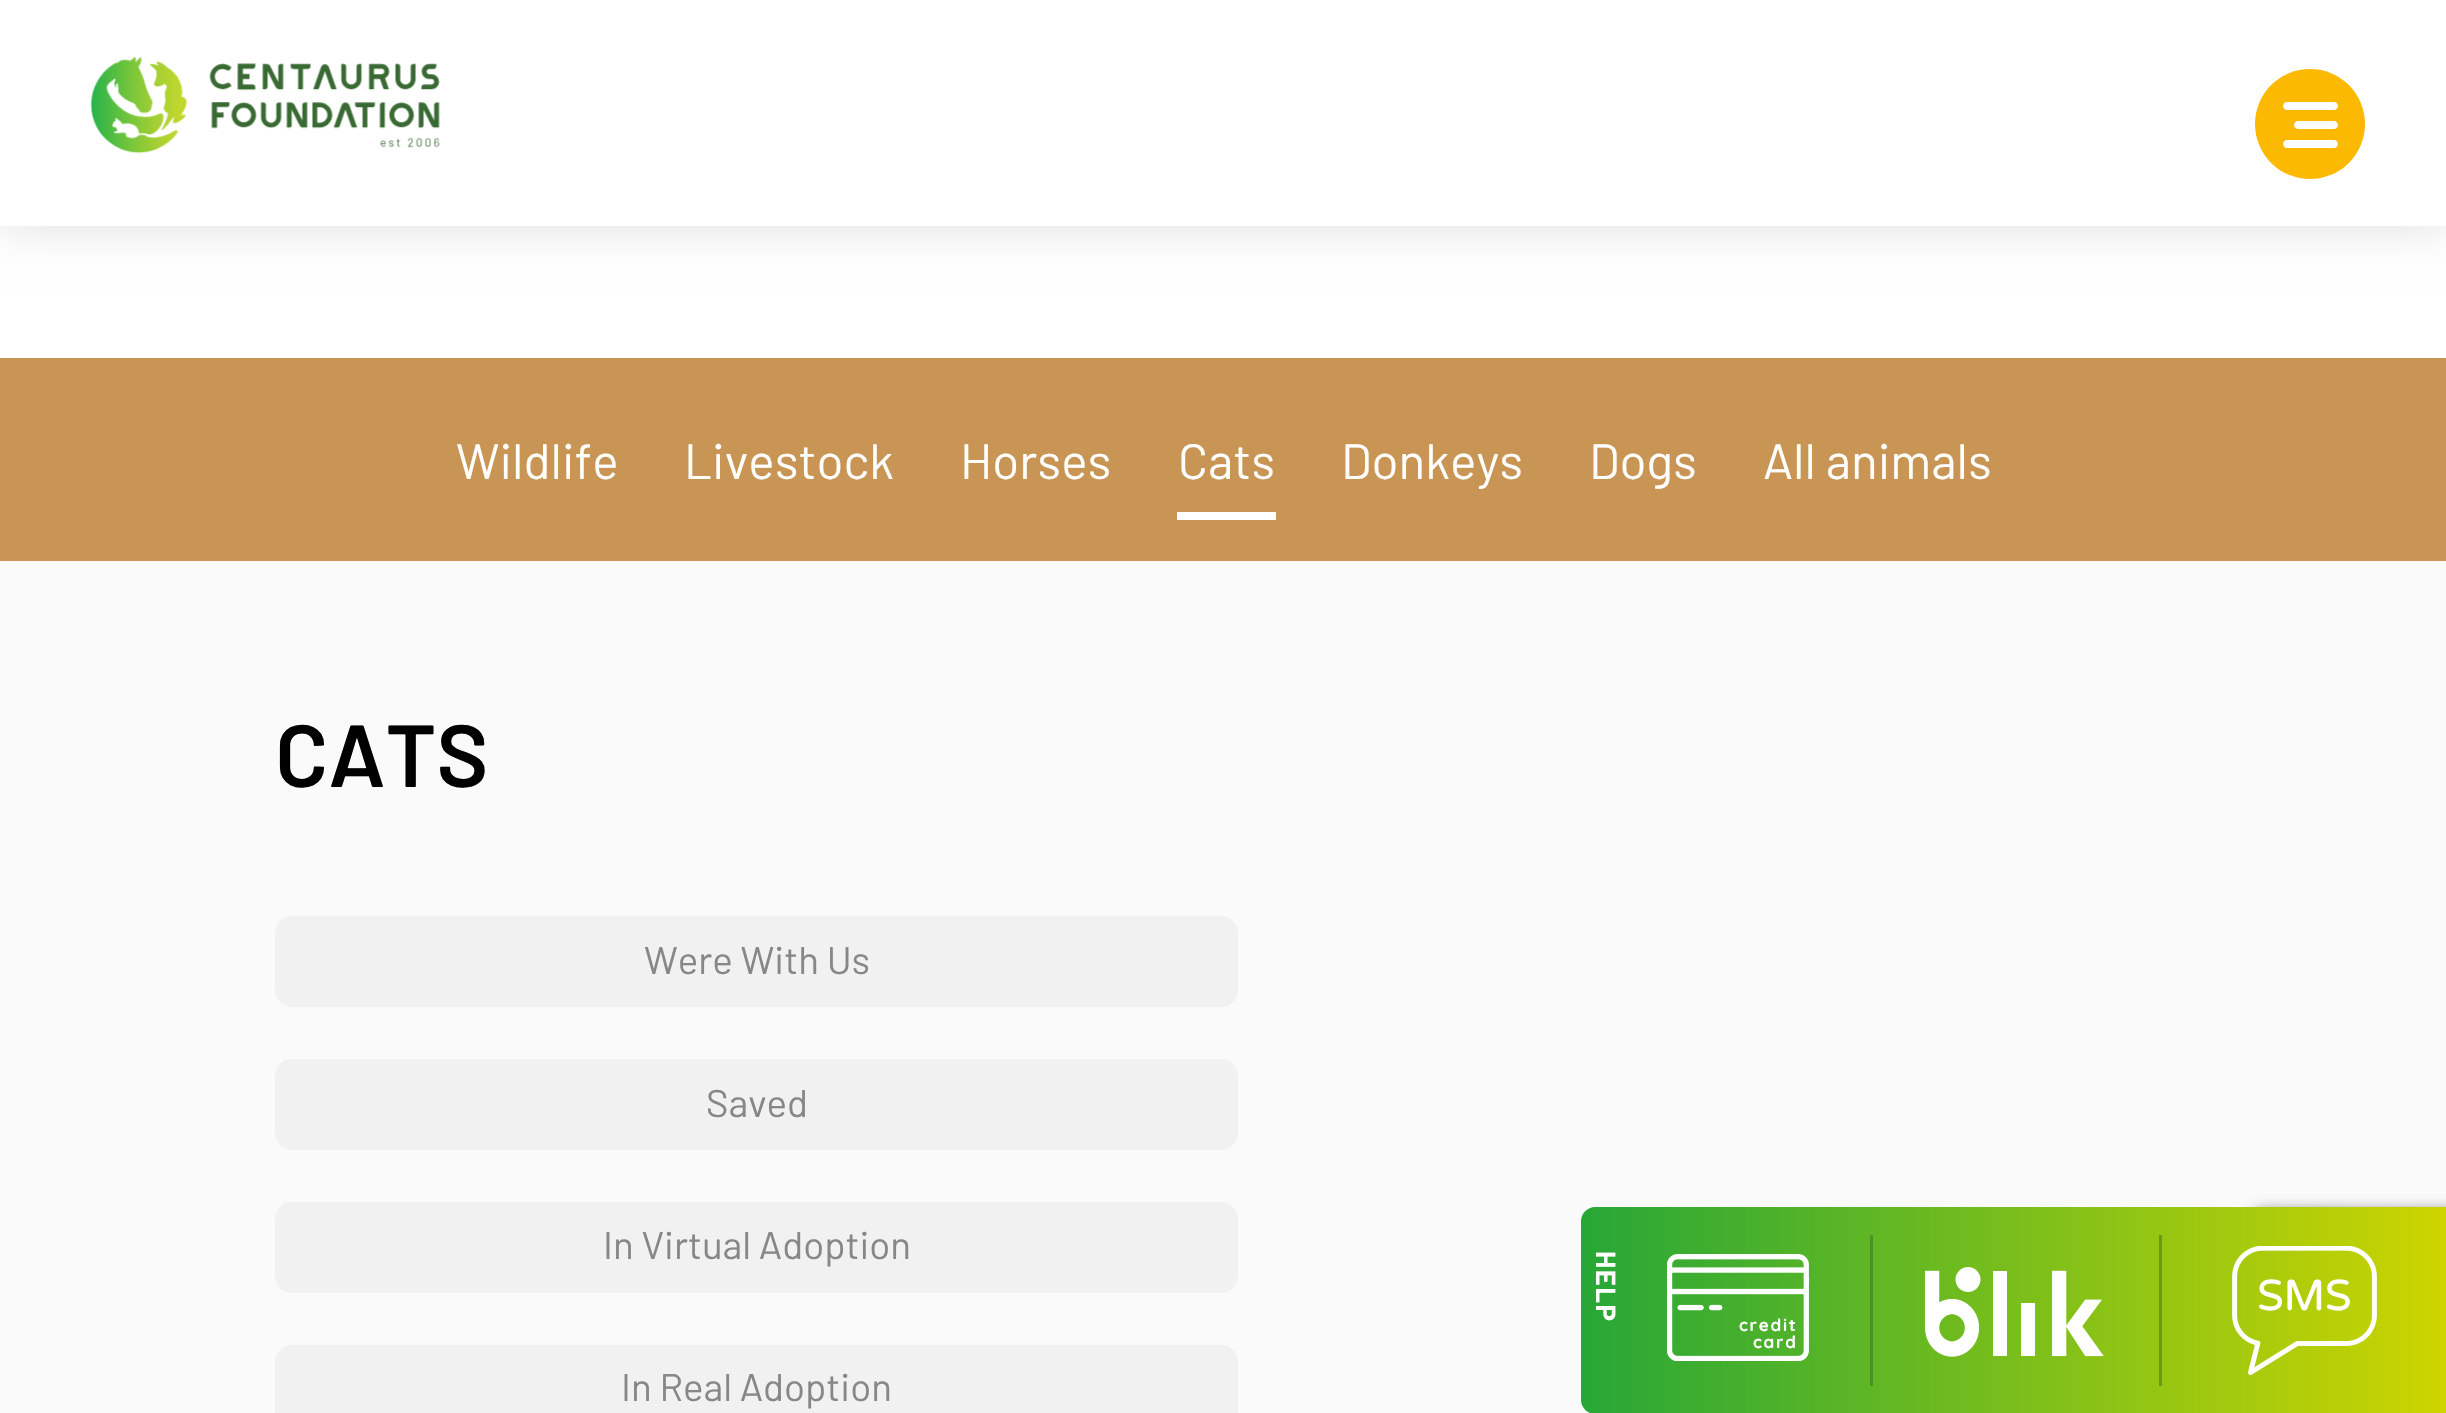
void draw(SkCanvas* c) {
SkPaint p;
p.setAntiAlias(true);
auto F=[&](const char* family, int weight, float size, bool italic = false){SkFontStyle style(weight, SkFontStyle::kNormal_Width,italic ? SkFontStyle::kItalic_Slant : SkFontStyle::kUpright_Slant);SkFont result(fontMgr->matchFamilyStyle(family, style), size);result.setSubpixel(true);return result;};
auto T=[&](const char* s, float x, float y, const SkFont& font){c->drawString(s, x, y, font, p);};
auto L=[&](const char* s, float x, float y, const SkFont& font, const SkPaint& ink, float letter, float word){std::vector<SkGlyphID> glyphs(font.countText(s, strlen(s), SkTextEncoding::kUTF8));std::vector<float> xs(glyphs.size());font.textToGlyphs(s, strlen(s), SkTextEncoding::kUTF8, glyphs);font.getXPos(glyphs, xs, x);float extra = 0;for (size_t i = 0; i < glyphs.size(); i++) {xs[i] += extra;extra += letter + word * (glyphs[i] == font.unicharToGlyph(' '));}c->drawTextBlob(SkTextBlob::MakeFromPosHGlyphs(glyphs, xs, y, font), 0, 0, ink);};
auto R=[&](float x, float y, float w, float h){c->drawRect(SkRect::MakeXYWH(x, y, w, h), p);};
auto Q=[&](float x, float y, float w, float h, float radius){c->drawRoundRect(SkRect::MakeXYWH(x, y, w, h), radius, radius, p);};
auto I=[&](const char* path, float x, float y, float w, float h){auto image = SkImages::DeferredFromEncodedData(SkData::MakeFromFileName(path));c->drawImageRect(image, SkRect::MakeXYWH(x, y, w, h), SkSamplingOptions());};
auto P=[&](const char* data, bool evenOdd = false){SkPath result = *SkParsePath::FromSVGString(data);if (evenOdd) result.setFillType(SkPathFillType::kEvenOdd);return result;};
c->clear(0xffffffff);
p.setColor(0x1a000000);
p.setMaskFilter(SkMaskFilter::MakeBlur(kNormal_SkBlurStyle, 20.5));
c->drawRect(SkRect::MakeXYWH(0,6,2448,225),p);
p.setMaskFilter(nullptr);
p.setColor(0xffffffff);
R(0,0,2446,226);
I("1.png",90,56,350,98);
p.setColor(0xfffbb901);
c->drawCircle(2310,124,55,p);
p.setColor(0xffffffff);
c->drawPath(P("M2287 102h23v8h-23c-2 0-4-2-4-4c0-2 2-4 4-4z"),p);
c->drawPath(P("M2310 102h24c2 0 4 2 4 4c0 2-2 4-4 4h-24z"),p);
c->drawPath(P("M2298 121h12v8h-12c-2 0-4-2-4-4c0-2 2-4 4-4z"),p);
c->drawPath(P("M2310 121h24c2 0 4 2 4 4c0 2-2 4-4 4h-24z"),p);
c->drawPath(P("M2287 140h23v8h-23c-2 0-4-2-4-4c0-2 2-4 4-4z"),p);
c->drawPath(P("M2310 140h24c2 0 4 2 4 4c0 2-2 4-4 4h-24z"),p);
p.setColor(0xffc99555);
R(0,358,2446,203);
auto f1 = F("Barlow",400,49.5);
p.setColor(0xffffffff);
T("Wildlife",456,479,f1);
T("Livestock",684,479,f1);
T("Horses",960,479,f1);
T("Cats",1178,479,f1);
R(1177,512,99,8);
T("Donkeys",1341,479,f1);
T("Dogs",1589,479,f1);
T("All animals",1763,479,f1);
p.setColor(0xfffafafa);
R(0,561,2446,852);
auto f2 = F("Barlow",600,88);
p.setColor(0xff000000);
T("CATS",275,787,f2);
p.setColor(0xfff1f1f1);
Q(275,916,963,91,17);
auto f3 = F("Barlow",400,38.5);
p.setColor(0xff878787);
T("Were With Us",644,974,f3);
p.setColor(0xfff1f1f1);
Q(275,1059,963,91,17);
p.setColor(0xff878787);
T("Saved",706,1117,f3);
p.setColor(0xfff1f1f1);
Q(275,1202,963,91,17);
p.setColor(0xff878787);
T("In Virtual Adoption",603,1259,f3);
p.setColor(0xfff1f1f1);
Q(275,1345,963,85,17);
p.setColor(0xff878787);
T("In Real Adoption",621,1401,f3);
p.setColor(0xff808080);
p.setMaskFilter(SkMaskFilter::MakeBlur(kNormal_SkBlurStyle, 7));
c->drawRoundRect(SkRect::MakeXYWH(2255,1210,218,165),6,6,p);
p.setMaskFilter(nullptr);
{
const SkColor colors[] = {0xff27a737,0xffcdd500};
const float stops[] = {0,1};
const SkPoint ends[] = {{1581,1310}, {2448,1310}};
p.setShader(SkGradientShader::MakeLinear(ends, colors, stops, 2, SkTileMode::kClamp));
p.setAlpha(255);
}
c->drawPath(P("M1595 1207h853v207h-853c-7.5 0-14-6.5-14-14v-179c0-7.5 6.5-14 14-14z"),p);
auto f4 = F("Barlow",700,27.5);
p.setShader(nullptr);
p.setColor(0xffffffff);
c->save();
c->rotate(90,1596,1251);
L("HELP",1596,1251,f4,p,1.5,0);
c->restore();
p.setColor(0xff4e9028);
R(1870,1235,3,151);
I("2.png",1667,1254,143,107);
auto f5 = F("Quicksand",700,17);
p.setColor(0xffffffff);
L("credit",1739,1331,f5,p,1.75,0);
L("card",1753,1348,f5,p,1.75,0);
I("3.png",1925,1267,179,90);
p.setColor(0xff6a981f);
R(2159,1235,3,151);
I("4.png",2232,1246,145,129);
}
